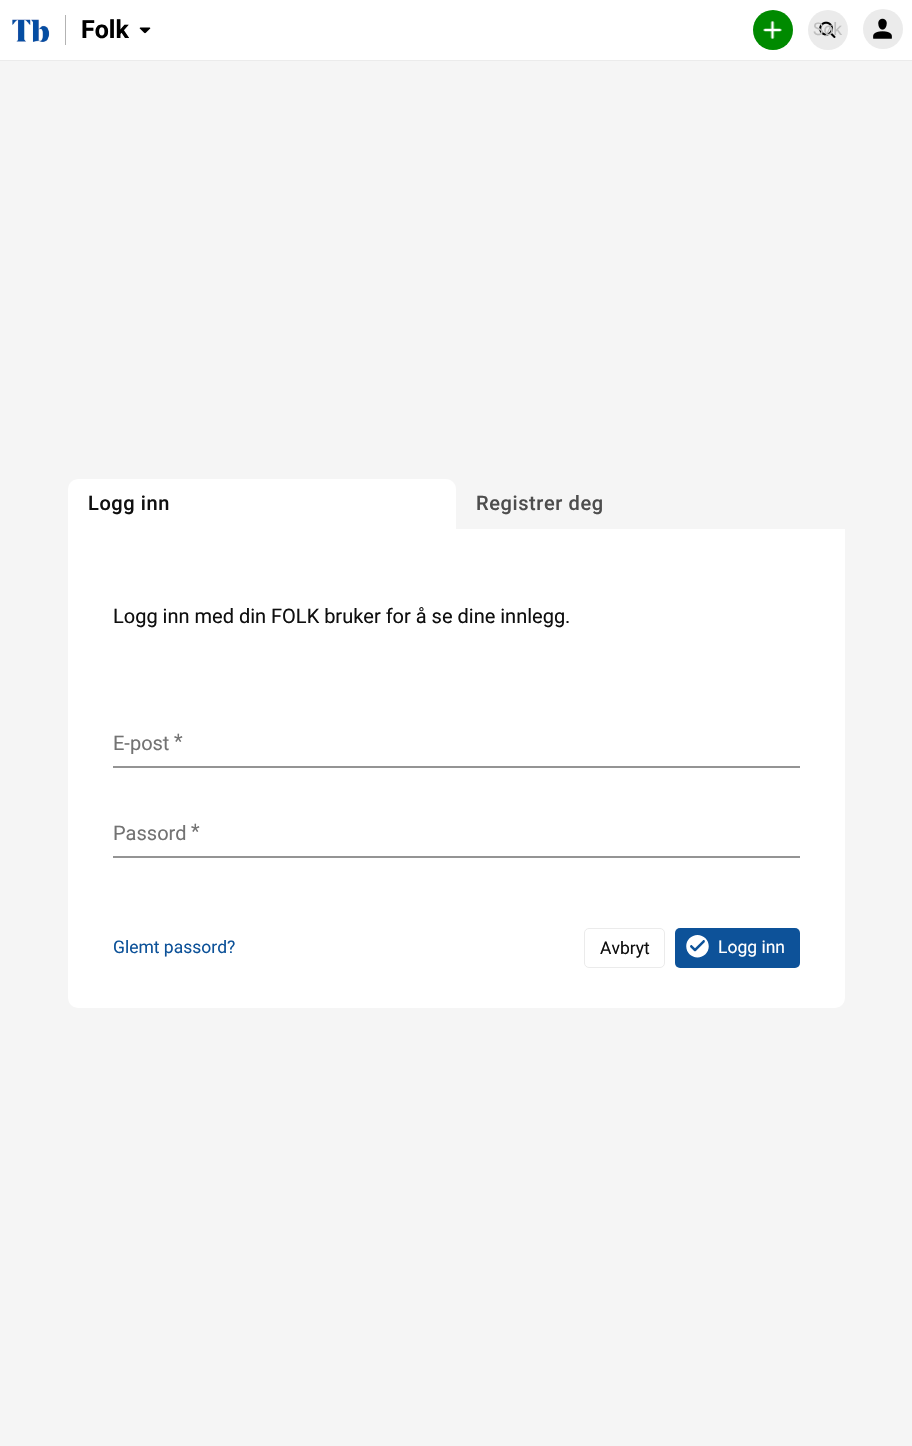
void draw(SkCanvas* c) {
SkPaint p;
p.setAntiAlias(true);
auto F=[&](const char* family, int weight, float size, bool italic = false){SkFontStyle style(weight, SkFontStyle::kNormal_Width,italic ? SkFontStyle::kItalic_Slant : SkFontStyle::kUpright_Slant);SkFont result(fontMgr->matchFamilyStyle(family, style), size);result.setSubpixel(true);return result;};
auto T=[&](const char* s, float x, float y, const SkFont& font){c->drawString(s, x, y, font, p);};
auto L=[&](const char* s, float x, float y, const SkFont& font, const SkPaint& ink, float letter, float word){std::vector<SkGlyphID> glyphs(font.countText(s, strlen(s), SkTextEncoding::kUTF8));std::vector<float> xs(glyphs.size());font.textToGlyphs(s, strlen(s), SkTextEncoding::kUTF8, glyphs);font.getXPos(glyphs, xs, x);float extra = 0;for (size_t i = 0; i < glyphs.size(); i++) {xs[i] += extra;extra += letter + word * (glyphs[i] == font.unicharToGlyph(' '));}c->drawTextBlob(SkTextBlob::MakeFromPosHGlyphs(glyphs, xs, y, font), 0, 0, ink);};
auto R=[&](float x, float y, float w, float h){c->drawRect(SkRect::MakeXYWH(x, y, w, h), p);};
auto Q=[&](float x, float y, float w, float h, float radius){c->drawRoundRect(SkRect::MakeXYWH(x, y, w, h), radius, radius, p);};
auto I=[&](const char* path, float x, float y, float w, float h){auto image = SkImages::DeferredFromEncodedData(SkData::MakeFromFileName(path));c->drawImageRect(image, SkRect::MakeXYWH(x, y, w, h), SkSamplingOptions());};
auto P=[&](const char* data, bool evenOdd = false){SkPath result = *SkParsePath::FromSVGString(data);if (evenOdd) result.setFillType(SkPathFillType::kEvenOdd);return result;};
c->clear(0xfff5f5f5);
p.setColor(0xffffffff);
R(0,0,912,60);
p.setColor(0xffebebeb);
R(0,60,912,1);
I("1.png",12,19,38,23);
p.setColor(0xffb3b3b3);
R(65,15,1,30);
auto f1 = F("Roboto",700,25);
p.setColor(0xff000000);
T("Folk",81,38,f1);
I("2.png",139,27,12,7);
p.setColor(0xff008a00);
c->drawCircle(773,30,20,p);
I("3.png",763,21,19,18);
p.setColor(0xffebebeb);
c->drawCircle(828,30,20,p);
I("4.png",819,21,17,17);
auto f2 = F("Roboto",400,17.5);
p.setColor(0xffbebebe);
T("Søk",813,35,f2);
p.setColor(0xffebebeb);
c->drawCircle(883,29,20,p);
I("5.png",873,18,19,21);
c->save();
c->clipPath(P("M77 479h759c5 0 9 4 9 9v511c0 5-4 9-9 9h-759c-5 0-9-4-9-9v-511c0-5 4-9 9-9z"),true);
p.setColor(0xffffffff);
c->drawPath(P("M78 479h368c5.5 0 10 4.5 10 10v40h-388v-40c0-5.5 4.5-10 10-10z"),p);
c->restore();
auto f3 = F("Roboto",500,20);
p.setColor(0xff0f0f0f);
L("Logg inn",88,510,f3,p,.6,0);
p.setColor(0xff4d4d4d);
L("Registrer deg",476,510,f3,p,.6,0);
p.setColor(0xffffffff);
R(68,529,777,357);
auto f4 = F("Roboto",400,20);
p.setColor(0xff0f0f0f);
T("Logg inn med din FOLK bruker for å se dine innlegg.",113,623,f4);
p.setColor(0xff737373);
T("E-post",113,750,f4);
T("*",174,748,f4);
p.setColor(0xff949494);
R(113,766,687,2);
p.setColor(0xff737373);
T("Passord",113,840,f4);
T("*",191,838,f4);
p.setColor(0xff949494);
R(113,856,687,2);
c->save();
c->clipPath(P("M77 479h759c5 0 9 4 9 9v511c0 5-4 9-9 9h-759c-5 0-9-4-9-9v-511c0-5 4-9 9-9z"),true);
p.setColor(0xffffffff);
c->drawPath(P("M68 886h777v112c0 5.5-4.5 10-10 10h-757c-5.5 0-10-4.5-10-10z"),p);
c->restore();
p.setColor(0xff0d5299);
T("Glemt passord?",113,953,f2);
p.setStroke(true);
p.setStrokeWidth(1);
p.setColor(0xffebebeb);
c->drawRoundRect(SkRect::MakeXYWH(584.5,928.5,80,39),4.5,4.5,p);
p.setStroke(false);
p.setColor(0xff0f0f0f);
T("Avbryt",600,954,f2);
p.setColor(0xff0d5299);
Q(675,928,125,40,5);
I("6.png",686,935,23,23);
p.setColor(0xffffffff);
T("Logg inn",718,953,f2);
}
